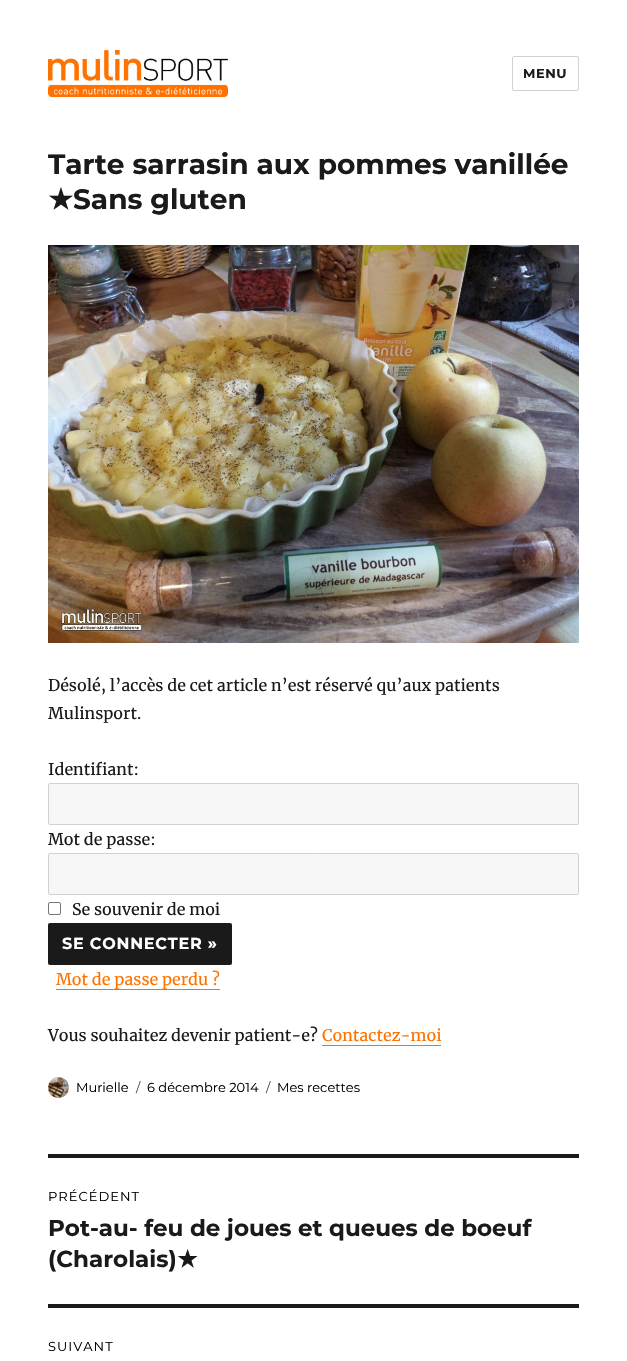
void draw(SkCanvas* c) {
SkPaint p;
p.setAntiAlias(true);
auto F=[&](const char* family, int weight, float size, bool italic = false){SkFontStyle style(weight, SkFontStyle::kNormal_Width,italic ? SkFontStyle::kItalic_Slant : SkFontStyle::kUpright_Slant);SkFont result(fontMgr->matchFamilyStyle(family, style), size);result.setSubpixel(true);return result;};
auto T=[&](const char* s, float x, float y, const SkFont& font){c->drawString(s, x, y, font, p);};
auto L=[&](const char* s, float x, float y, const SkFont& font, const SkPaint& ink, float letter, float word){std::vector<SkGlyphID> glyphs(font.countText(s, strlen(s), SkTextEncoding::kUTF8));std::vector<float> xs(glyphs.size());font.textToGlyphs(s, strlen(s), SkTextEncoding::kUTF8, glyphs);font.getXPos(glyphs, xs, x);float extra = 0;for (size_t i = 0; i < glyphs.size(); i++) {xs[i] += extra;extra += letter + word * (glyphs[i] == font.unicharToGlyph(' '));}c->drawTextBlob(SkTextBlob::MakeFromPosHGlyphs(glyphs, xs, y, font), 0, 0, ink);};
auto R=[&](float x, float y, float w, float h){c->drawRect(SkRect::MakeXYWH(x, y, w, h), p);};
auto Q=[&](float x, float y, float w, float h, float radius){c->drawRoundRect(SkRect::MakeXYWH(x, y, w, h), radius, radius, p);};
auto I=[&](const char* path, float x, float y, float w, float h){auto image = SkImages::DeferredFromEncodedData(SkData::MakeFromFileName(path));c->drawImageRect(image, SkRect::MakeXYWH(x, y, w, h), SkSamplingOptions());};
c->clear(0xffffffff);
I("1.png",48,50,180,47);
p.setStroke(true);
p.setStrokeWidth(1);
p.setColor(0xffd1d1d1);
c->drawRoundRect(SkRect::MakeXYWH(512.5,56.5,66,34),1.5,1.5,p);
auto f1 = F("Montserrat",100,13);
p.setStroke(false);
p.setColor(0xff1a1a1a);
L("MENU",523,78,f1,p,.5,0);
auto f2 = F("Montserrat",100,28);
T("Tarte sarrasin aux pommes vanillée",48,174,f2);
auto f3 = F("DejaVu Sans",700,28);
T("★",48,209,f3);
T("Sans gluten",73,209,f2);
I("2.png",48,245,531,398);
auto f4 = F("Merriweather",400,16);
T("Désolé, l’accès de cet article n’est réservé qu’aux patients",48,691,f4);
T("Mulinsport.",48,719,f4);
T("Identifiant:",48,775,f4);
p.setColor(0xfff7f7f7);
c->drawRoundRect(SkRect::MakeXYWH(48.5,783.5,530,41),1.5,1.5,p);
p.setStroke(true);
p.setColor(0xffd1d1d1);
c->drawRoundRect(SkRect::MakeXYWH(48.5,783.5,530,41),1.5,1.5,p);
p.setStroke(false);
p.setColor(0xff1a1a1a);
T("Mot de passe:",48,845,f4);
p.setColor(0xfff7f7f7);
c->drawRoundRect(SkRect::MakeXYWH(48.5,853.5,530,41),1.5,1.5,p);
p.setStroke(true);
p.setColor(0xffd1d1d1);
c->drawRoundRect(SkRect::MakeXYWH(48.5,853.5,530,41),1.5,1.5,p);
p.setColor(0xff767676);
c->drawRoundRect(SkRect::MakeXYWH(48.5,902.5,12,12),1.5,1.5,p);
p.setStroke(false);
p.setColor(0xff1a1a1a);
T("Se souvenir de moi",72,915,f4);
Q(48,923,184,42,2);
auto f5 = F("Montserrat",100,16);
p.setColor(0xffffffff);
L("SE CONNECTER »",62,949,f5,p,.75,0);
p.setColor(0xffff7200);
T("Mot de passe perdu ?",56,985,f4);
R(56,989,164,1);
p.setColor(0xff1a1a1a);
T("Vous souhaitez devenir patient-e?",48,1041,f4);
p.setColor(0xffff7200);
T("Contactez-moi",322,1041,f4);
R(322,1045,119,1);
I("3.png",48,1077,21,21);
auto f6 = F("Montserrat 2",100,13);
p.setColor(0xff000000);
T("Murielle",76,1092,f6);
p.setColor(0xff4d4d4d);
T("/",136,1092,f6);
p.setColor(0xff000000);
T("6 décembre 2014",147,1092,f6);
p.setColor(0xff4d4d4d);
T("/",266,1092,f6);
p.setColor(0xff000000);
T("Mes recettes",277,1092,f6);
p.setColor(0xff1a1a1a);
R(48,1154,531,4);
p.setColor(0xff000000);
L("PRÉCÉDENT",48,1201,f6,p,1,0);
auto f7 = F("Montserrat",100,23);
p.setColor(0xff1a1a1a);
T("Pot-au- feu de joues et queues de boeuf",48,1236,f7);
T("(Charolais)",48,1267,f7);
auto f8 = F("DejaVu Sans",700,23);
T("★",177,1267,f8);
R(48,1304,531,4);
p.setColor(0xff000000);
L("SUIVANT",48,1351,f6,p,1,0);
}
